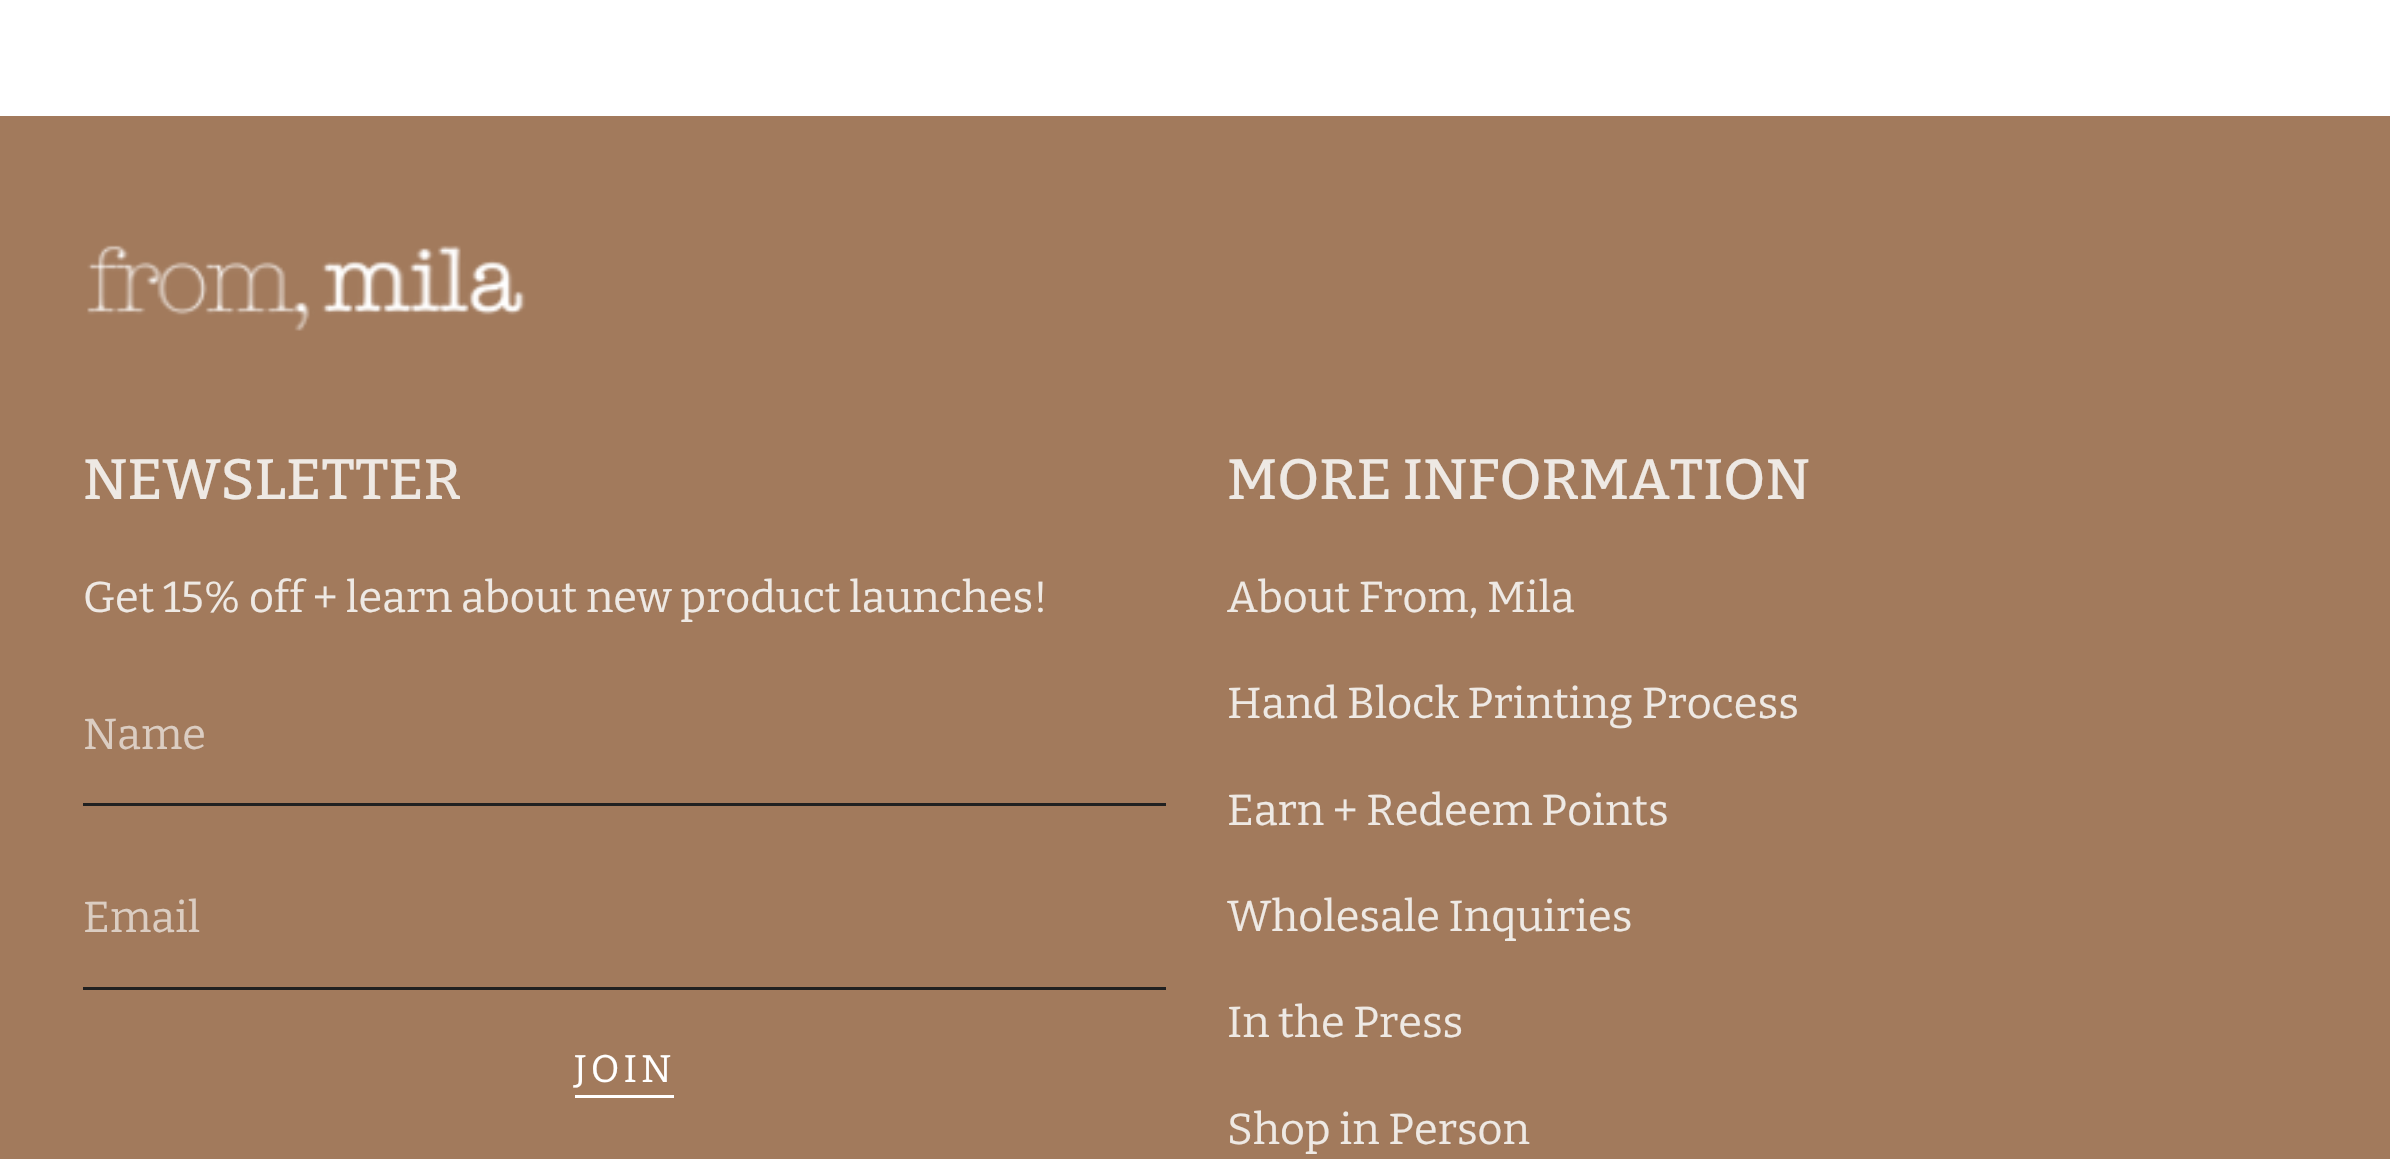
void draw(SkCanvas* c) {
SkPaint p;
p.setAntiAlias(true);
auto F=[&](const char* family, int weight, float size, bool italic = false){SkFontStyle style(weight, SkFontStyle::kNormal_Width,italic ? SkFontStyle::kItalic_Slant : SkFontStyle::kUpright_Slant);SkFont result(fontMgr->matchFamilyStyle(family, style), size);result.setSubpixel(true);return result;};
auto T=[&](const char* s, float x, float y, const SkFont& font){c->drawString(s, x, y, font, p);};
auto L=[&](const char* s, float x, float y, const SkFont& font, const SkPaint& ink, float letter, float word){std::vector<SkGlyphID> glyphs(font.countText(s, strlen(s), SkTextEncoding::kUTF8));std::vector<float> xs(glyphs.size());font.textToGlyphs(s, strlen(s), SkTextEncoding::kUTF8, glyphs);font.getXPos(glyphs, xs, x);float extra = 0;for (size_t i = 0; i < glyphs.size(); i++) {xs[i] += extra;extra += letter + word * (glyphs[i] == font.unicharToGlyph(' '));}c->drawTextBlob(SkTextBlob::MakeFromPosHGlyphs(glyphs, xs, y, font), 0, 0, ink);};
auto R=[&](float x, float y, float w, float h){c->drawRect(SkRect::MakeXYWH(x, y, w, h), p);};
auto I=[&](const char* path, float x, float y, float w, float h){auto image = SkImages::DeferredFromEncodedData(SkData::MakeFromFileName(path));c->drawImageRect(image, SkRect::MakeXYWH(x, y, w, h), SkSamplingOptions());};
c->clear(0xffffffff);
p.setColor(0xffa27a5c);
R(0,116,2390,1043);
I("1.png",87,245,439,86);
auto f1 = F("Bitter",500,56.75);
p.setColor(0xffeee9e4);
T("NEWSLETTER",83,499,f1);
auto f2 = F("Bitter",400,43.3);
T("Get 15% off + learn about new product launches!",83,612,f2);
p.setColor(0xff212121);
R(83,803,1083,3);
p.setColor(0xffdbcdc2);
T("Name",83,749,f2);
p.setColor(0xff212121);
R(83,987,1083,3);
p.setColor(0xffdbcdc2);
T("Email",83,932,f2);
auto f3 = F("Bitter",400,38.5);
p.setColor(0xffffffff);
L("JOIN",574,1082,f3,p,4,0);
R(575,1095,99,3);
p.setColor(0xffeee9e4);
T("MORE INFORMATION",1227,499,f1);
T("About From, Mila",1227,612,f2);
T("Hand Block Printing Process",1227,718,f2);
T("Earn + Redeem Points",1227,825,f2);
T("Wholesale Inquiries",1227,931,f2);
T("In the Press",1227,1037,f2);
T("Shop in Person",1227,1144,f2);
}
